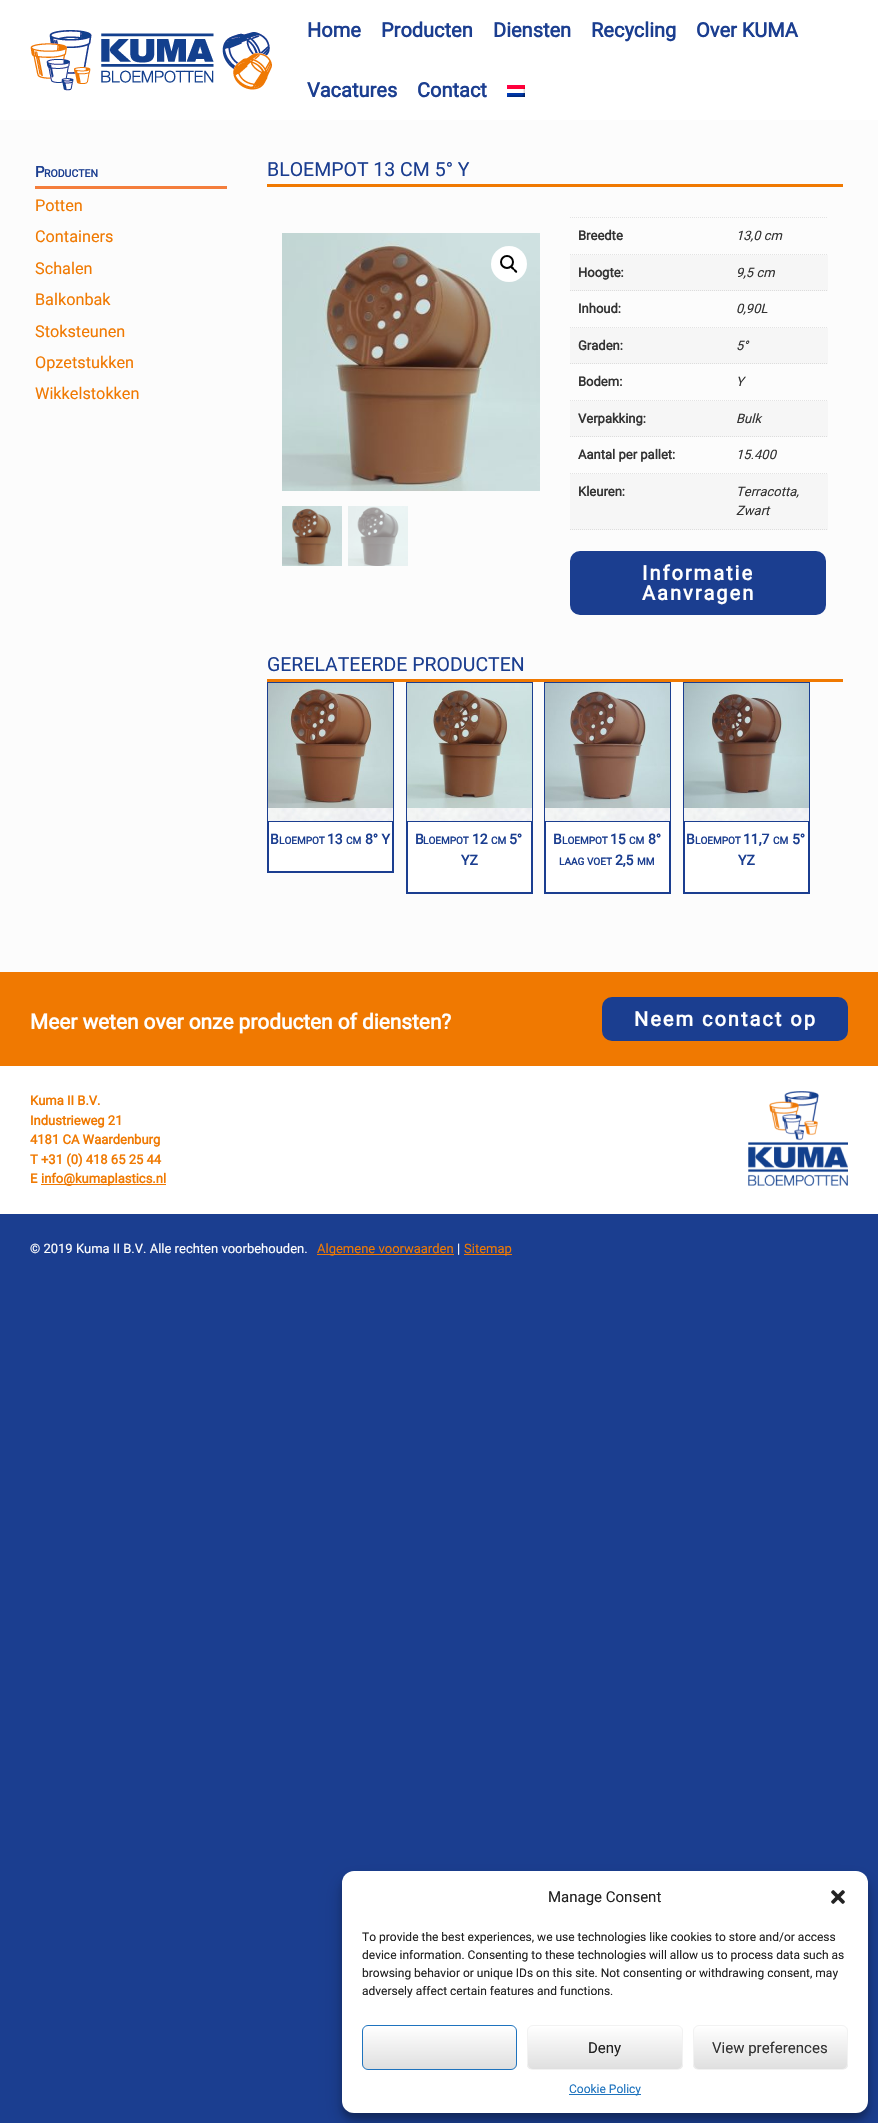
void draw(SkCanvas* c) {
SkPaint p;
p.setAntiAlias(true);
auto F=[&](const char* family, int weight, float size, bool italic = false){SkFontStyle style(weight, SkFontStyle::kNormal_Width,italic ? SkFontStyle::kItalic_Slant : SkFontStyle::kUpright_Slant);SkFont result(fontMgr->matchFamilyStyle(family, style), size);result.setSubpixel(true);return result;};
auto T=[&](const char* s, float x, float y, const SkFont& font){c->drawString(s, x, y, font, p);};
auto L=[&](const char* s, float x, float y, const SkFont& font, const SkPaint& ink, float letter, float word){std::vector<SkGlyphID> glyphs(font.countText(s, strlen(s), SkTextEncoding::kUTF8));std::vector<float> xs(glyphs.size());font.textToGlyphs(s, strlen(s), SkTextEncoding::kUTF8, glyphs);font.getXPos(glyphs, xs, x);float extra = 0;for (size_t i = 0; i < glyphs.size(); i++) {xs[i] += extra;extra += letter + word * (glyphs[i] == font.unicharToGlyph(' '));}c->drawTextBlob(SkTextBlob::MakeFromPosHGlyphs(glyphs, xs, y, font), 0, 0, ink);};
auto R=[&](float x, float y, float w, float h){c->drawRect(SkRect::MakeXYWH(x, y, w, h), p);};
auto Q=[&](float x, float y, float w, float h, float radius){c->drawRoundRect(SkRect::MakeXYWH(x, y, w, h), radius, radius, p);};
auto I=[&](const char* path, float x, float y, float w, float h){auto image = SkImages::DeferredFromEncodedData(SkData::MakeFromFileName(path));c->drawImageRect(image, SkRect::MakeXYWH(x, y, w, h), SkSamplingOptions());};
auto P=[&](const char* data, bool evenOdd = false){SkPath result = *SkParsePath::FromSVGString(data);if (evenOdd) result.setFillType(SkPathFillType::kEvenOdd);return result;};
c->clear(0xff1b3e90);
p.setColor(0xffffffff);
R(0,0,878,120);
I("1.png",30,30,242,61);
auto f1 = F("Roboto",700,20);
p.setColor(0xff1b3e90);
T("Home",307,37,f1);
T("Producten",381,37,f1);
T("Diensten",493,37,f1);
T("Recycling",591,37,f1);
T("Over KUMA",696,37,f1);
T("Vacatures",307,97,f1);
T("Contact",417,97,f1);
I("2.png",507,85,18,12);
p.setColor(0xfffcfcfc);
R(0,120,878,852);
p.setColor(0xfff47e3c);
R(35,186,192,3);
auto f2 = F("Roboto",700,15);
p.setColor(0xff1b3e90);
T("P",35,177,f2);
auto f3 = F("Roboto",700,10.5);
T("RODUCTEN",44,177,f3);
auto f4 = F("Roboto",400,16.25);
p.setColor(0xfff07901);
T("Potten",35,211,f4);
T("Containers",35,242,f4);
T("Schalen",35,274,f4);
T("Balkonbak",35,305,f4);
T("Stoksteunen",35,337,f4);
T("Opzetstukken",35,368,f4);
T("Wikkelstokken",35,399,f4);
R(267,184,576,3);
auto f5 = F("Roboto",400,19.5);
p.setColor(0xff1b3e90);
T("BLOEMPOT 13 CM 5° Y",267,176,f5);
I("3.png",282,233,258,258);
p.setColor(0xffffffff);
c->drawCircle(509,264,18,p);
p.setStroke(true);
p.setStrokeWidth(2);
p.setColor(0xff000000);
c->drawCircle(507,262,6,p);
p.setStroke(false);
c->drawPath(P("M511 266.5c1.5-1 3 1.5 3.5 2.5c1 .5 3.5 2 2.5 3.5c-1.5 1-3-1.5-3.5-2.5c-1-.5-3.5-2-2.5-3.5z"),p);
I("4.png",282,506,60,60);
I("5.png",348,506,60,60);
p.setStroke(true);
p.setStrokeWidth(1);
p.setColor(0xffe3e3e3);
p.setPathEffect(SkDashPathEffect::Make({{1,1}}, 0));
c->drawPath(P("M570 217.5h258"),p);
p.setPathEffect(nullptr);
p.setPathEffect(SkDashPathEffect::Make({{1,1}}, 0));
c->drawPath(P("M570 254.5h166"),p);
p.setPathEffect(nullptr);
auto f6 = F("Roboto",700,13);
p.setStroke(false);
p.setColor(0xff333333);
T("Breedte",578,240,f6);
p.setStroke(true);
p.setColor(0xffe3e3e3);
p.setPathEffect(SkDashPathEffect::Make({{1,1}}, 0));
c->drawPath(P("M736 254.5h92"),p);
p.setPathEffect(nullptr);
auto f7 = F("Roboto",400,13,true);
p.setStroke(false);
p.setColor(0xff333333);
T("13,0 cm",736,240,f7);
p.setColor(0xfff6f6f6);
R(570,255,258,36);
p.setStroke(true);
p.setColor(0xffdddddd);
p.setPathEffect(SkDashPathEffect::Make({{1,1}}, 0));
c->drawPath(P("M570 290.5h166"),p);
p.setPathEffect(nullptr);
p.setStroke(false);
p.setColor(0xff333333);
T("Hoogte:",578,277,f6);
p.setStroke(true);
p.setColor(0xffdddddd);
p.setPathEffect(SkDashPathEffect::Make({{1,1}}, 0));
c->drawPath(P("M736 290.5h92"),p);
p.setPathEffect(nullptr);
p.setStroke(false);
p.setColor(0xff333333);
T("9,5 cm",736,277,f7);
p.setStroke(true);
p.setColor(0xffe3e3e3);
p.setPathEffect(SkDashPathEffect::Make({{1,1}}, 0));
c->drawPath(P("M570 327.5h166"),p);
p.setPathEffect(nullptr);
p.setStroke(false);
p.setColor(0xff333333);
T("Inhoud:",578,313,f6);
p.setStroke(true);
p.setColor(0xffe3e3e3);
p.setPathEffect(SkDashPathEffect::Make({{1,1}}, 0));
c->drawPath(P("M736 327.5h92"),p);
p.setPathEffect(nullptr);
p.setStroke(false);
p.setColor(0xff333333);
T("0,90L",736,313,f7);
p.setColor(0xfff6f6f6);
R(570,328,258,36);
p.setStroke(true);
p.setColor(0xffdddddd);
p.setPathEffect(SkDashPathEffect::Make({{1,1}}, 0));
c->drawPath(P("M570 363.5h166"),p);
p.setPathEffect(nullptr);
p.setStroke(false);
p.setColor(0xff333333);
T("Graden:",578,350,f6);
p.setStroke(true);
p.setColor(0xffdddddd);
p.setPathEffect(SkDashPathEffect::Make({{1,1}}, 0));
c->drawPath(P("M736 363.5h92"),p);
p.setPathEffect(nullptr);
p.setStroke(false);
p.setColor(0xff333333);
T("5°",736,350,f7);
p.setStroke(true);
p.setColor(0xffe3e3e3);
p.setPathEffect(SkDashPathEffect::Make({{1,1}}, 0));
c->drawPath(P("M570 400.5h166"),p);
p.setPathEffect(nullptr);
p.setStroke(false);
p.setColor(0xff333333);
T("Bodem:",578,386,f6);
p.setStroke(true);
p.setColor(0xffe3e3e3);
p.setPathEffect(SkDashPathEffect::Make({{1,1}}, 0));
c->drawPath(P("M736 400.5h92"),p);
p.setPathEffect(nullptr);
p.setStroke(false);
p.setColor(0xff333333);
T("Y",736,386,f7);
p.setColor(0xfff6f6f6);
R(570,401,258,36);
p.setStroke(true);
p.setColor(0xffdddddd);
p.setPathEffect(SkDashPathEffect::Make({{1,1}}, 0));
c->drawPath(P("M570 436.5h166"),p);
p.setPathEffect(nullptr);
p.setStroke(false);
p.setColor(0xff333333);
T("Verpakking:",578,423,f6);
p.setStroke(true);
p.setColor(0xffdddddd);
p.setPathEffect(SkDashPathEffect::Make({{1,1}}, 0));
c->drawPath(P("M736 436.5h92"),p);
p.setPathEffect(nullptr);
p.setStroke(false);
p.setColor(0xff333333);
T("Bulk",736,423,f7);
p.setStroke(true);
p.setColor(0xffe3e3e3);
p.setPathEffect(SkDashPathEffect::Make({{1,1}}, 0));
c->drawPath(P("M570 473.5h166"),p);
p.setPathEffect(nullptr);
p.setStroke(false);
p.setColor(0xff333333);
T("Aantal per pallet:",578,459,f6);
p.setStroke(true);
p.setColor(0xffe3e3e3);
p.setPathEffect(SkDashPathEffect::Make({{1,1}}, 0));
c->drawPath(P("M736 473.5h92"),p);
p.setPathEffect(nullptr);
p.setStroke(false);
p.setColor(0xff333333);
T("15.400",736,459,f7);
p.setColor(0xfff6f6f6);
R(570,474,258,56);
p.setStroke(true);
p.setColor(0xffdddddd);
p.setPathEffect(SkDashPathEffect::Make({{1,1}}, 0));
c->drawPath(P("M570 529.5h166"),p);
p.setPathEffect(nullptr);
p.setStroke(false);
p.setColor(0xff333333);
T("Kleuren:",578,496,f6);
p.setStroke(true);
p.setColor(0xffdddddd);
p.setPathEffect(SkDashPathEffect::Make({{1,1}}, 0));
c->drawPath(P("M736 529.5h92"),p);
p.setPathEffect(nullptr);
p.setStroke(false);
p.setColor(0xff333333);
T("Terracotta,",736,496,f7);
T("Zwart",736,515,f7);
p.setColor(0xff1b3e90);
c->drawRoundRect(SkRect::MakeXYWH(571,552,254,62),9,9,p);
p.setStroke(true);
p.setStrokeWidth(2);
c->drawRoundRect(SkRect::MakeXYWH(571,552,254,62),9,9,p);
p.setStroke(false);
p.setColor(0xffffffff);
L("Informatie",642,580,f1,p,2,0);
L("Aanvragen",642,600,f1,p,2,0);
p.setColor(0xfff07901);
R(267,679,576,3);
p.setColor(0xff1b3e90);
T("GERELATEERDE PRODUCTEN",267,671,f5);
I("6.png",268,808,125,13);
p.setStroke(true);
p.setStrokeWidth(1);
c->drawRect(SkRect::MakeXYWH(267.5,682.5,126,190),p);
I("7.png",268,683,125,125);
p.setStroke(false);
p.setColor(0xffffffff);
c->drawRect(SkRect::MakeXYWH(268.5,821.5,124,50),p);
p.setStroke(true);
p.setColor(0xff1b3e90);
c->drawRect(SkRect::MakeXYWH(268.5,821.5,124,50),p);
auto f8 = F("Roboto",700,14);
p.setStroke(false);
T("B",270,844,f8);
auto f9 = F("Roboto",700,10);
T("LOEMPOT",279,844,f9);
T("13",327,844,f8);
T("CM",346,844,f9);
T("8° Y",365,844,f8);
I("6.png",407,808,125,13);
p.setStroke(true);
c->drawRect(SkRect::MakeXYWH(406.5,682.5,126,211),p);
I("8.png",407,683,125,125);
p.setStroke(false);
p.setColor(0xffffffff);
c->drawRect(SkRect::MakeXYWH(407.5,821.5,124,71),p);
p.setStroke(true);
p.setColor(0xff1b3e90);
c->drawRect(SkRect::MakeXYWH(407.5,821.5,124,71),p);
p.setStroke(false);
T("B",415,844,f8);
T("LOEMPOT",423,844,f9);
T("12",472,844,f8);
T("CM",491,844,f9);
T("5°",509,844,f8);
T("YZ",461,865,f8);
I("6.png",545,808,125,13);
p.setStroke(true);
c->drawRect(SkRect::MakeXYWH(544.5,682.5,126,211),p);
I("9.png",545,683,125,125);
p.setStroke(false);
p.setColor(0xffffffff);
c->drawRect(SkRect::MakeXYWH(545.5,821.5,124,71),p);
p.setStroke(true);
p.setColor(0xff1b3e90);
c->drawRect(SkRect::MakeXYWH(545.5,821.5,124,71),p);
p.setStroke(false);
T("B",553,844,f8);
T("LOEMPOT",562,844,f9);
T("15",610,844,f8);
T("CM",629,844,f9);
T("8°",648,844,f8);
T("LAAG",559,865,f9);
T("VOET",587,865,f9);
T("2,5",615,865,f8);
T("MM",637,865,f9);
I("6.png",684,808,125,13);
p.setStroke(true);
c->drawRect(SkRect::MakeXYWH(683.5,682.5,126,211),p);
I("10.png",684,683,125,125);
p.setStroke(false);
p.setColor(0xffffffff);
c->drawRect(SkRect::MakeXYWH(684.5,821.5,124,71),p);
p.setStroke(true);
p.setColor(0xff1b3e90);
c->drawRect(SkRect::MakeXYWH(684.5,821.5,124,71),p);
p.setStroke(false);
T("B",686,844,f8);
T("LOEMPOT",695,844,f9);
T("11,7",743,844,f8);
T("CM",773,844,f9);
T("5°",792,844,f8);
T("YZ",738,865,f8);
p.setColor(0xfff07901);
R(0,972,878,94);
auto f10 = F("Roboto",700,20.8);
p.setColor(0xffffffff);
T("Meer weten over onze producten of diensten?",30,1029,f10);
p.setColor(0xff1b3e90);
c->drawRoundRect(SkRect::MakeXYWH(603,998,244,42),9,9,p);
p.setStroke(true);
p.setStrokeWidth(2);
c->drawRoundRect(SkRect::MakeXYWH(603,998,244,42),9,9,p);
p.setStroke(false);
p.setColor(0xffffffff);
L("Neem contact op",634,1026,f1,p,2,0);
R(0,1066,878,148);
p.setColor(0xfff07901);
T("Kuma II B.V.",30,1105,f6);
T("Industrieweg 21",30,1125,f6);
T("4181 CA Waardenburg",30,1144,f6);
T("T +31 (0) 418 65 25 44",30,1164,f6);
T("E",30,1183,f6);
R(41,1184,125,1);
T("info@kumaplastics.nl",41,1183,f6);
I("11.png",748,1091,100,95);
auto f11 = F("Roboto",400,13);
p.setColor(0xffffffff);
T("© 2019 Kuma II B.V. Alle rechten voorbehouden.",30,1253,f11);
p.setColor(0xfff07901);
R(317,1254,137,1);
T("Algemene voorwaarden",317,1253,f11);
p.setColor(0xffffffff);
T("|",457,1253,f11);
p.setColor(0xfff07901);
R(464,1254,48,1);
T("Sitemap",464,1253,f11);
p.setColor(0x3b000000);
p.setMaskFilter(SkMaskFilter::MakeBlur(kNormal_SkBlurStyle, 3));
c->drawRoundRect(SkRect::MakeXYWH(342,1877,526,242),12,12,p);
p.setMaskFilter(nullptr);
p.setColor(0x30000000);
p.setMaskFilter(SkMaskFilter::MakeBlur(kNormal_SkBlurStyle, 10));
c->drawRoundRect(SkRect::MakeXYWH(342,1881,526,242),12,12,p);
p.setMaskFilter(nullptr);
p.setColor(0xffffffff);
Q(342,1871,526,242,12);
auto f12 = F("Roboto",400,15);
p.setColor(0xff222222);
T("Manage Consent",548,1902,f12);
I("12.png",831,1890,14,14);
auto f13 = F("Roboto",400,12);
T("To provide the best experiences, we use technologies like cookies to store and/or access",362,1941,f13);
T("device information. Consenting to these technologies will allow us to process data such as",362,1959,f13);
T("browsing behavior or unique IDs on this site. Not consenting or withdrawing consent, may",362,1977,f13);
T("adversely affect certain features and functions.",362,1995,f13);
c->save();
c->clipPath(P("M368 2025h143c3.5 0 6 2.5 6 6v33c0 3.5-2.5 6-6 6h-143c-3.5 0-6-2.5-6-6v-33c0-3.5 2.5-6 6-6z"),true);
{
const SkColor colors[] = {0xffdfdfdf,0xffffffff};
const float stops[] = {0,1};
const SkPoint ends[] = {{363,2069}, {363,2026}};
p.setShader(SkGradientShader::MakeLinear(ends, colors, stops, 2, SkTileMode::kClamp));
p.setAlpha(255);
}
R(362,2026,155,43);
c->restore();
p.setStroke(true);
p.setStrokeWidth(1);
p.setShader(nullptr);
p.setColor(0xff1e73be);
c->drawRoundRect(SkRect::MakeXYWH(362.5,2025.5,154,44),5.5,5.5,p);
c->save();
c->clipPath(P("M533 2025h144c3.5 0 6 2.5 6 6v33c0 3.5-2.5 6-6 6h-144c-3.5 0-6-2.5-6-6v-33c0-3.5 2.5-6 6-6z"),true);
p.setStroke(false);
{
const SkColor colors[] = {0xffdfdfdf,0xffffffff};
const float stops[] = {0,1};
const SkPoint ends[] = {{528,2069}, {528,2026}};
p.setShader(SkGradientShader::MakeLinear(ends, colors, stops, 2, SkTileMode::kClamp));
p.setAlpha(255);
}
R(527,2026,156,43);
c->restore();
p.setStroke(true);
p.setShader(nullptr);
p.setColor(0xfff2f2f2);
c->drawRoundRect(SkRect::MakeXYWH(527.5,2025.5,155,44),5.5,5.5,p);
p.setStroke(false);
p.setColor(0xff222222);
T("Deny",588,2053,f12);
c->save();
c->clipPath(P("M699 2025h143c3.5 0 6 2.5 6 6v33c0 3.5-2.5 6-6 6h-143c-3.5 0-6-2.5-6-6v-33c0-3.5 2.5-6 6-6z"),true);
{
const SkColor colors[] = {0xffdfdfdf,0xffffffff};
const float stops[] = {0,1};
const SkPoint ends[] = {{694,2069}, {694,2026}};
p.setShader(SkGradientShader::MakeLinear(ends, colors, stops, 2, SkTileMode::kClamp));
p.setAlpha(255);
}
R(693,2026,155,43);
c->restore();
p.setStroke(true);
p.setShader(nullptr);
p.setColor(0xfff2f2f2);
c->drawRoundRect(SkRect::MakeXYWH(693.5,2025.5,154,44),5.5,5.5,p);
p.setStroke(false);
p.setColor(0xff333333);
T("View preferences",712,2053,f12);
p.setColor(0xff1e73be);
R(569,2094,72,1);
T("Cookie Policy",569,2093,f13);
}
